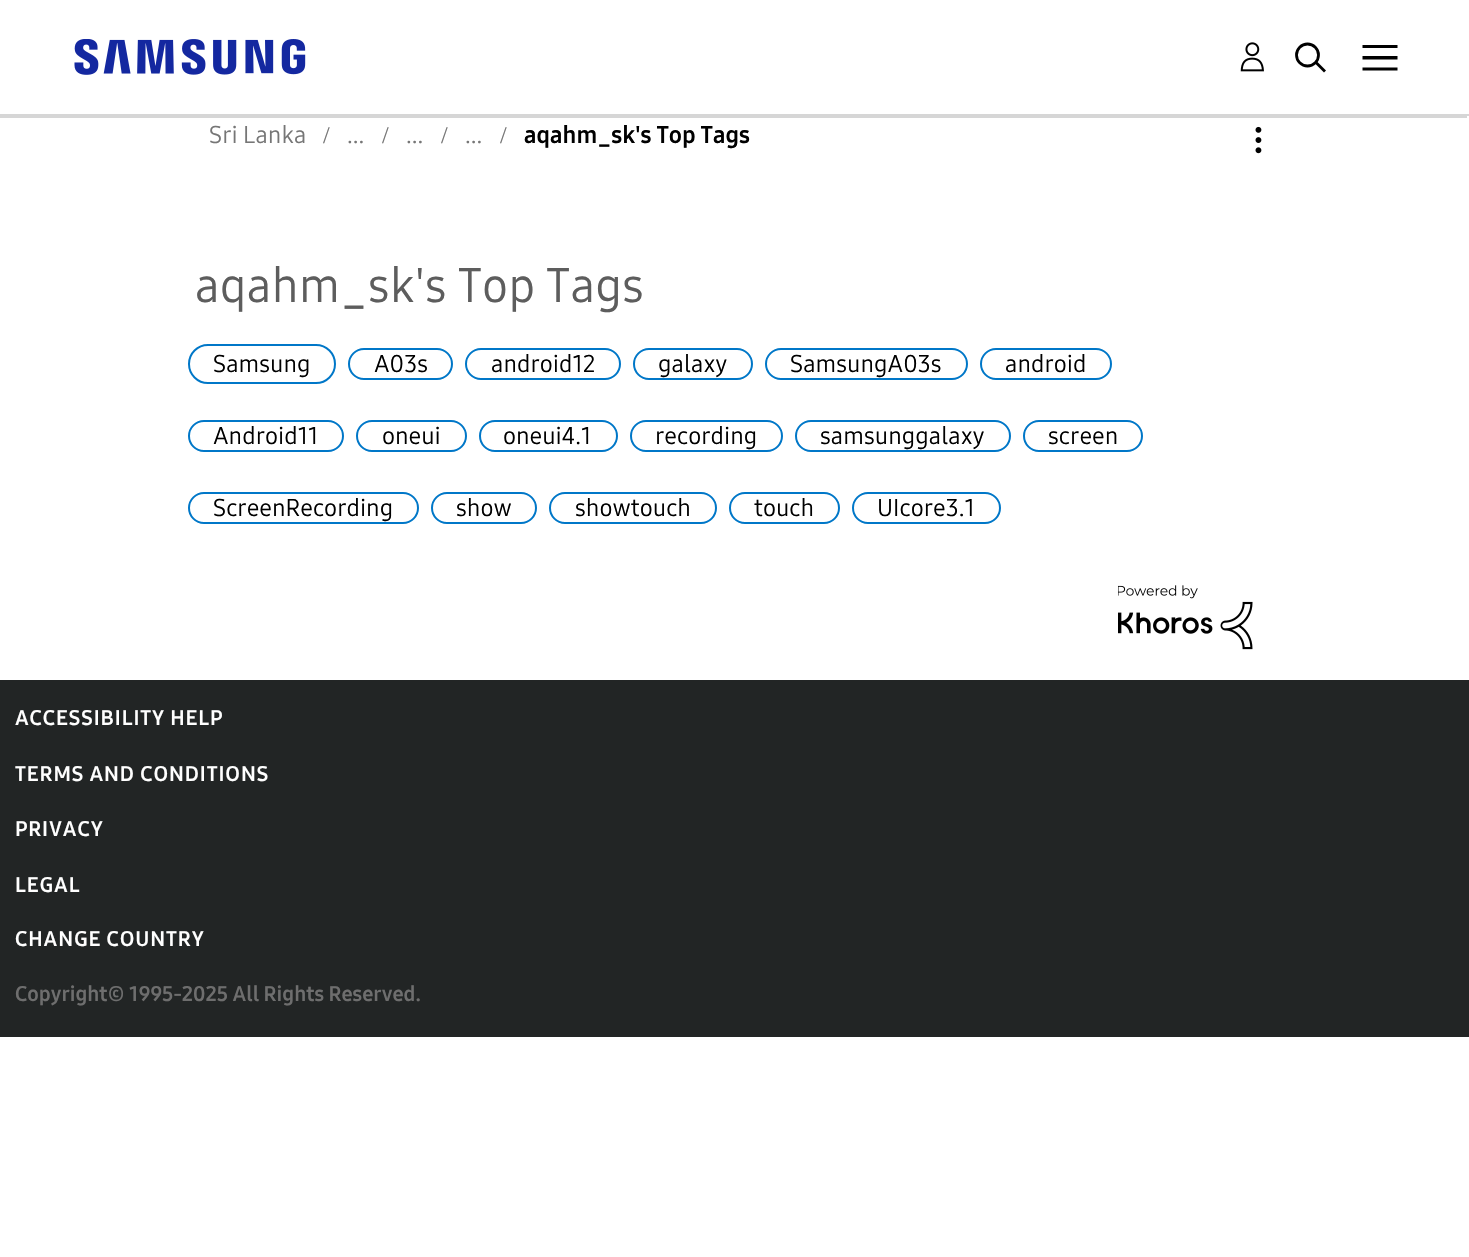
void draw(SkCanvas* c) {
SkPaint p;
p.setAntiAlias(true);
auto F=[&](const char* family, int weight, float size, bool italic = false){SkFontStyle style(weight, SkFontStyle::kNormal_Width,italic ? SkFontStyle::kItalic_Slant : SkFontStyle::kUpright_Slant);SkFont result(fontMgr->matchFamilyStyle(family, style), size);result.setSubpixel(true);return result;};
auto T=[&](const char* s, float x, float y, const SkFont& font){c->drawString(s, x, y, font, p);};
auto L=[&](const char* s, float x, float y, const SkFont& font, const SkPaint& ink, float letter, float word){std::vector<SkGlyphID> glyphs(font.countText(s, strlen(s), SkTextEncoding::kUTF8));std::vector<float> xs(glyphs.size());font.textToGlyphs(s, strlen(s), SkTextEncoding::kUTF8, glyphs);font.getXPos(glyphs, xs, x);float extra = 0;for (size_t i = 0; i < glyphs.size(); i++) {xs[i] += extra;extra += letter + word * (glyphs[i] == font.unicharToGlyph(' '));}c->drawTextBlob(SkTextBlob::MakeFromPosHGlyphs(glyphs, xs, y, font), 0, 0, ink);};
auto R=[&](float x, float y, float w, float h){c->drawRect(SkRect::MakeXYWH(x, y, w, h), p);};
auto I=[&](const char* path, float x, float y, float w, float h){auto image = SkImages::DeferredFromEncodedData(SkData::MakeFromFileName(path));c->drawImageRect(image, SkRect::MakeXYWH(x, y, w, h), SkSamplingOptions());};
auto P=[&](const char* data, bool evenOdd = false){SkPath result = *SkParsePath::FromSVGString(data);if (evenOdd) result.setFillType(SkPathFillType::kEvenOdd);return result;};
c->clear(0xffffffff);
p.setColor(0xffd6d6d6);
R(0,114,1469,2);
I("1.png",74,39,232,36);
I("2.png",1240,42,24,30);
p.setStroke(true);
p.setStrokeWidth(2.8);
p.setColor(0xff000000);
c->drawCircle(1307.5,55,11,p);
p.setStrokeCap(SkPaint::kSquare_Cap);
c->drawPath(P("M1317 63.5l7 7"),p);
p.setStroke(false);
c->drawPath(P("M1397.5 67.5v3h-35v-3zm0-11.5v3.5h-35v-3.5zm0-11v3h-35v-3z"),p);
p.setColor(0xffd6d6d6);
R(0,116,1467,2);
auto f1 = F("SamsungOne",400,24);
p.setColor(0xff767676);
T("Sri Lanka",209,143,f1);
auto f2 = F("Liberation Serif",400,24);
T("/",323,143,f2);
T("...",347,143,f1);
T("/",382,143,f2);
T("...",406,143,f1);
T("/",441,143,f2);
T("...",465,143,f1);
T("/",500,143,f2);
auto f3 = F("SamsungOne",700,24);
p.setColor(0xff000000);
T("aqahm_sk's Top Tags",524,143,f3);
I("3.png",1255,126,7,28);
auto f4 = F("SamsungOne",400,48);
p.setColor(0xff5d5d5d);
T("aqahm_sk's Top Tags",195,302,f4);
p.setStroke(true);
p.setStrokeWidth(2);
p.setStrokeCap(SkPaint::kButt_Cap);
p.setColor(0xff0077c8);
c->drawRoundRect(SkRect::MakeXYWH(189,345,146,38),19,19,p);
p.setStroke(false);
p.setColor(0xff000000);
T("Samsung",213,372,f1);
p.setStroke(true);
p.setColor(0xff0077c8);
c->drawRoundRect(SkRect::MakeXYWH(349,349,103,30),15,15,p);
p.setStroke(false);
p.setColor(0xff000000);
T("A03s",374,372,f1);
p.setStroke(true);
p.setColor(0xff0077c8);
c->drawRoundRect(SkRect::MakeXYWH(466,349,154,30),15,15,p);
p.setStroke(false);
p.setColor(0xff000000);
T("android12",491,372,f1);
p.setStroke(true);
p.setColor(0xff0077c8);
c->drawRoundRect(SkRect::MakeXYWH(634,349,118,30),15,15,p);
p.setStroke(false);
p.setColor(0xff000000);
T("galaxy",658,372,f1);
p.setStroke(true);
p.setColor(0xff0077c8);
c->drawRoundRect(SkRect::MakeXYWH(766,349,201,30),15,15,p);
p.setStroke(false);
p.setColor(0xff000000);
T("SamsungA03s",790,372,f1);
p.setStroke(true);
p.setColor(0xff0077c8);
c->drawRoundRect(SkRect::MakeXYWH(981,349,130,30),15,15,p);
p.setStroke(false);
p.setColor(0xff000000);
T("android",1005,372,f1);
p.setStroke(true);
p.setColor(0xff0077c8);
c->drawRoundRect(SkRect::MakeXYWH(189,421,154,30),15,15,p);
p.setStroke(false);
p.setColor(0xff000000);
T("Android11",213,444,f1);
p.setStroke(true);
p.setColor(0xff0077c8);
c->drawRoundRect(SkRect::MakeXYWH(357,421,109,30),15,15,p);
p.setStroke(false);
p.setColor(0xff000000);
T("oneui",382,444,f1);
p.setStroke(true);
p.setColor(0xff0077c8);
c->drawRoundRect(SkRect::MakeXYWH(480,421,137,30),15,15,p);
p.setStroke(false);
p.setColor(0xff000000);
T("oneui4.1",503,444,f1);
p.setStroke(true);
p.setColor(0xff0077c8);
c->drawRoundRect(SkRect::MakeXYWH(631,421,151,30),15,15,p);
p.setStroke(false);
p.setColor(0xff000000);
T("recording",655,444,f1);
p.setStroke(true);
p.setColor(0xff0077c8);
c->drawRoundRect(SkRect::MakeXYWH(796,421,214,30),15,15,p);
p.setStroke(false);
p.setColor(0xff000000);
T("samsunggalaxy",820,444,f1);
p.setStroke(true);
p.setColor(0xff0077c8);
c->drawRoundRect(SkRect::MakeXYWH(1024,421,118,30),15,15,p);
p.setStroke(false);
p.setColor(0xff000000);
T("screen",1048,444,f1);
p.setStroke(true);
p.setColor(0xff0077c8);
c->drawRoundRect(SkRect::MakeXYWH(189,493,229,30),15,15,p);
p.setStroke(false);
p.setColor(0xff000000);
T("ScreenRecording",213,516,f1);
p.setStroke(true);
p.setColor(0xff0077c8);
c->drawRoundRect(SkRect::MakeXYWH(432,493,104,30),15,15,p);
p.setStroke(false);
p.setColor(0xff000000);
T("show",456,516,f1);
p.setStroke(true);
p.setColor(0xff0077c8);
c->drawRoundRect(SkRect::MakeXYWH(550,493,166,30),15,15,p);
p.setStroke(false);
p.setColor(0xff000000);
T("showtouch",575,516,f1);
p.setStroke(true);
p.setColor(0xff0077c8);
c->drawRoundRect(SkRect::MakeXYWH(730,493,109,30),15,15,p);
p.setStroke(false);
p.setColor(0xff000000);
T("touch",754,516,f1);
p.setStroke(true);
p.setColor(0xff0077c8);
c->drawRoundRect(SkRect::MakeXYWH(853,493,147,30),15,15,p);
p.setStroke(false);
p.setColor(0xff000000);
T("UIcore3.1",877,516,f1);
I("4.png",1118,585,135,65);
p.setColor(0xff222525);
R(0,680,1469,357);
auto f5 = F("SamsungOne",700,21);
p.setColor(0xffffffff);
L("ACCESSIBILITY HELP",15,725,f5,p,.9,0);
L("TERMS AND CONDITIONS",15,781,f5,p,.9,0);
L("PRIVACY",15,836,f5,p,.9,0);
L("LEGAL",15,892,f5,p,.9,0);
L("CHANGE COUNTRY",15,946,f5,p,.9,0);
p.setColor(0xff6e6e6e);
T("Copyright© 1995-2025 All Rights Reserved.",15,1001,f5);
}
